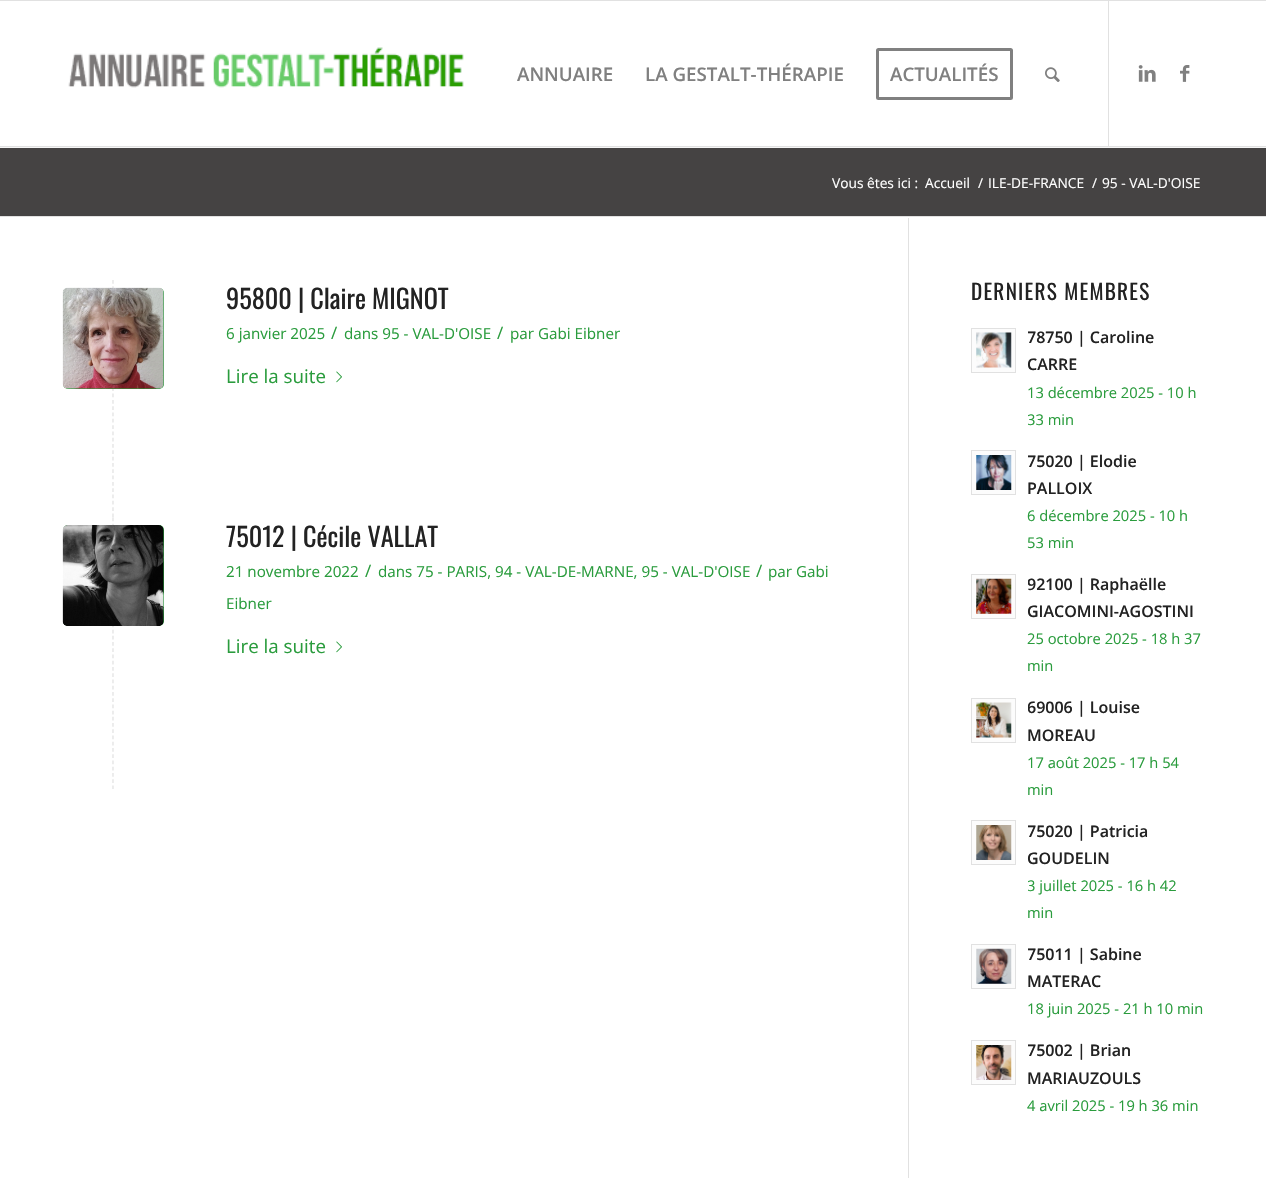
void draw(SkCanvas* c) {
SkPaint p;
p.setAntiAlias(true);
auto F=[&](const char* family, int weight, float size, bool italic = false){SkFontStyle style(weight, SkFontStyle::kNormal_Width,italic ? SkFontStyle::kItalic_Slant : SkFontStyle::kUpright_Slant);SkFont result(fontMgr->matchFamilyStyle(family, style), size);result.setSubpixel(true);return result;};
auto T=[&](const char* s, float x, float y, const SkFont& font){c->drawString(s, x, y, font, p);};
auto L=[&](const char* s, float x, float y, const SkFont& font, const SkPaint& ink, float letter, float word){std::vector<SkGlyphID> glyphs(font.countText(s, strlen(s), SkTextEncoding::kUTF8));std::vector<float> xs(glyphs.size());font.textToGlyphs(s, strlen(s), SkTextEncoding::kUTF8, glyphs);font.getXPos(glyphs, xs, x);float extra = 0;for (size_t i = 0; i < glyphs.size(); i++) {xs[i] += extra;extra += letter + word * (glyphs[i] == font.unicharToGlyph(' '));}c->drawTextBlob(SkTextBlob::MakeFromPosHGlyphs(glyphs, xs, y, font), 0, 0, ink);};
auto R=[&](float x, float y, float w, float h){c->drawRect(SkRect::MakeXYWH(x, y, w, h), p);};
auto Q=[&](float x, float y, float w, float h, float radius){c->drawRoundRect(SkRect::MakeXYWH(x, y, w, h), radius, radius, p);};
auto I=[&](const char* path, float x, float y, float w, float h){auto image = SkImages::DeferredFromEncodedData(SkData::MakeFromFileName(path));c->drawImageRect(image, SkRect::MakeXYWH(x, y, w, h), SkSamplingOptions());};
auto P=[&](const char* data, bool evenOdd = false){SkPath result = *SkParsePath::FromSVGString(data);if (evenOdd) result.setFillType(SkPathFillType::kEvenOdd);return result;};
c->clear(0xffffffff);
p.setColor(0xffe1e1e1);
R(0,0,1266,1);
R(0,146,1266,1);
I("1.png",68,47,396,41);
R(1108,1,1,145);
auto f1 = F("Open Sans",600,18.75);
p.setColor(0xff808080);
T("ANNUAIRE",517,81,f1);
T("LA GESTALT-THÉRAPIE",645,81,f1);
p.setStroke(true);
p.setStrokeWidth(3);
c->drawRoundRect(SkRect::MakeXYWH(877.5,49.5,134,49),1,1,p);
p.setStroke(false);
T("ACTUALITÉS",890,81,f1);
I("2.png",1045,67,15,15);
I("3.png",1138,65,18,17);
I("4.png",1180,65,10,17);
p.setColor(0xff454343);
R(0,148,1266,68);
p.setColor(0xfff6f6f6);
R(0,147,1266,1);
auto f2 = F("Open Sans",400,13.75);
p.setColor(0xffffffff);
T("Vous êtes ici :",832,188,f2);
T("Accueil",925,188,f2);
T("/",978,188,f2);
T("ILE-DE-FRANCE",988,188,f2);
T("/",1092,188,f2);
T("95 - VAL-D'OISE",1102,188,f2);
p.setColor(0xffe1e1e1);
R(0,216,1266,1);
p.setStroke(true);
p.setStrokeWidth(1.2);
p.setPathEffect(SkDashPathEffect::Make({{3.75f,2.56f}}, 0));
c->drawPath(P("M113 280v237.5"),p);
p.setPathEffect(nullptr);
p.setStroke(false);
p.setColor(0xff2a9c3d);
Q(63,288,101,101,5);
I("5.png",62,287,102,102);
auto f3 = F("Oswald",400,26.25);
p.setColor(0xff222222);
T("95800 | Claire MIGNOT",226,309,f3);
auto f4 = F("Open Sans",400,15.2);
p.setColor(0xff2a9c3d);
T("6 janvier 2025",226,339,f4);
auto f5 = F("Open Sans",400,17);
T("/",331,339,f5);
T("dans 95 - VAL-D'OISE",344,339,f4);
T("/",497,339,f5);
T("par Gabi Eibner",510,339,f4);
auto f6 = F("Open Sans",400,18.75);
T("Lire la suite",226,383,f6);
I("6.png",336,371,6,12);
p.setStroke(true);
p.setColor(0xffe1e1e1);
p.setPathEffect(SkDashPathEffect::Make({{3.75f,2.48f}}, 0));
c->drawPath(P("M113 517.5v271.5"),p);
p.setPathEffect(nullptr);
p.setStroke(false);
p.setColor(0xff2a9c3d);
Q(63,525,101,101,5);
I("7.png",62,525,102,101);
p.setColor(0xff222222);
T("75012 | Cécile VALLAT",226,547,f3);
p.setColor(0xff2a9c3d);
T("21 novembre 2022",226,577,f4);
T("/",365,577,f5);
T("dans 75 - PARIS, 94 - VAL-DE-MARNE, 95 - VAL-D'OISE",378,577,f4);
T("/",756,577,f5);
T("par Gabi",768,577,f4);
T("Eibner",226,609,f4);
T("Lire la suite",226,653,f6);
I("6.png",336,641,6,12);
p.setColor(0xffe1e1e1);
R(908,218,1,960);
auto f7 = F("Oswald",400,21.25);
p.setColor(0xff222222);
L("DERNIERS MEMBRES",971,300,f7,p,1.25,0);
p.setColor(0xfffcfcfc);
c->drawRect(SkRect::MakeXYWH(971.5,328.5,44,44),p);
p.setStroke(true);
p.setStrokeWidth(1);
p.setColor(0xffe1e1e1);
c->drawRect(SkRect::MakeXYWH(971.5,328.5,44,44),p);
I("8.png",976,332,36,36);
c->save();
c->clipRect(SkRect::MakeXYWH(1028,325,176,108));
auto f8 = F("Open Sans",600,16);
p.setStroke(false);
p.setColor(0xff222222);
T("78750 | Caroline",1027,343,f8);
c->restore();
T("CARRE",1027,370,f8);
auto f9 = F("Open Sans",400,14.7);
p.setColor(0xff2a9c3d);
T("13 décembre 2025 - 10 h",1027,398,f9);
c->save();
c->clipRect(SkRect::MakeXYWH(1028,325,176,108));
T("33 min",1027,425,f9);
c->restore();
p.setColor(0xfffcfcfc);
c->drawRect(SkRect::MakeXYWH(971.5,450.5,44,44),p);
p.setStroke(true);
p.setColor(0xffe1e1e1);
c->drawRect(SkRect::MakeXYWH(971.5,450.5,44,44),p);
I("9.png",976,455,36,35);
c->save();
c->clipRect(SkRect::MakeXYWH(1028,448,176,108));
p.setStroke(false);
p.setColor(0xff222222);
T("75020 | Elodie",1027,467,f8);
c->restore();
T("PALLOIX",1027,494,f8);
p.setColor(0xff2a9c3d);
T("6 décembre 2025 - 10 h",1027,521,f9);
T("53 min",1027,548,f9);
p.setColor(0xfffcfcfc);
c->drawRect(SkRect::MakeXYWH(971.5,574.5,44,44),p);
p.setStroke(true);
p.setColor(0xffe1e1e1);
c->drawRect(SkRect::MakeXYWH(971.5,574.5,44,44),p);
I("10.png",976,578,36,36);
c->save();
c->clipRect(SkRect::MakeXYWH(1028,571,176,109));
p.setStroke(false);
p.setColor(0xff222222);
T("92100 | Raphaëlle",1027,590,f8);
c->restore();
T("GIACOMINI-AGOSTINI",1027,617,f8);
p.setColor(0xff2a9c3d);
T("25 octobre 2025 - 18 h 37",1027,644,f9);
T("min",1027,671,f9);
p.setColor(0xfffcfcfc);
c->drawRect(SkRect::MakeXYWH(971.5,698.5,44,44),p);
p.setStroke(true);
p.setColor(0xffe1e1e1);
c->drawRect(SkRect::MakeXYWH(971.5,698.5,44,44),p);
I("11.png",976,702,36,36);
c->save();
c->clipRect(SkRect::MakeXYWH(1028,695,176,108));
p.setStroke(false);
p.setColor(0xff222222);
T("69006 | Louise",1027,713,f8);
c->restore();
T("MOREAU",1027,741,f8);
p.setColor(0xff2a9c3d);
T("17 août 2025 - 17 h 54",1027,768,f9);
T("min",1027,795,f9);
p.setColor(0xfffcfcfc);
c->drawRect(SkRect::MakeXYWH(971.5,820.5,44,44),p);
p.setStroke(true);
p.setColor(0xffe1e1e1);
c->drawRect(SkRect::MakeXYWH(971.5,820.5,44,44),p);
I("12.png",976,825,36,35);
c->save();
c->clipRect(SkRect::MakeXYWH(1028,818,176,108));
p.setStroke(false);
p.setColor(0xff222222);
T("75020 | Patricia",1027,837,f8);
c->restore();
T("GOUDELIN",1027,864,f8);
c->save();
c->clipRect(SkRect::MakeXYWH(1028,818,176,108));
p.setColor(0xff2a9c3d);
T("3 juillet 2025 - 16 h 42",1027,891,f9);
c->restore();
T("min",1027,918,f9);
p.setColor(0xfffcfcfc);
c->drawRect(SkRect::MakeXYWH(971.5,944.5,44,44),p);
p.setStroke(true);
p.setColor(0xffe1e1e1);
c->drawRect(SkRect::MakeXYWH(971.5,944.5,44,44),p);
I("13.png",976,948,36,36);
c->save();
c->clipRect(SkRect::MakeXYWH(1028,941,176,82));
p.setStroke(false);
p.setColor(0xff222222);
T("75011 | Sabine",1027,960,f8);
c->restore();
T("MATERAC",1027,987,f8);
p.setColor(0xff2a9c3d);
T("18 juin 2025 - 21 h 10 min",1027,1014,f9);
p.setColor(0xfffcfcfc);
c->drawRect(SkRect::MakeXYWH(971.5,1040.5,44,44),p);
p.setStroke(true);
p.setColor(0xffe1e1e1);
c->drawRect(SkRect::MakeXYWH(971.5,1040.5,44,44),p);
I("14.png",976,1045,36,35);
c->save();
c->clipRect(SkRect::MakeXYWH(1028,1038,176,81));
p.setStroke(false);
p.setColor(0xff222222);
T("75002 | Brian",1027,1056,f8);
c->restore();
T("MARIAUZOULS",1027,1084,f8);
p.setColor(0xff2a9c3d);
T("4 avril 2025 - 19 h 36 min",1027,1111,f9);
}
